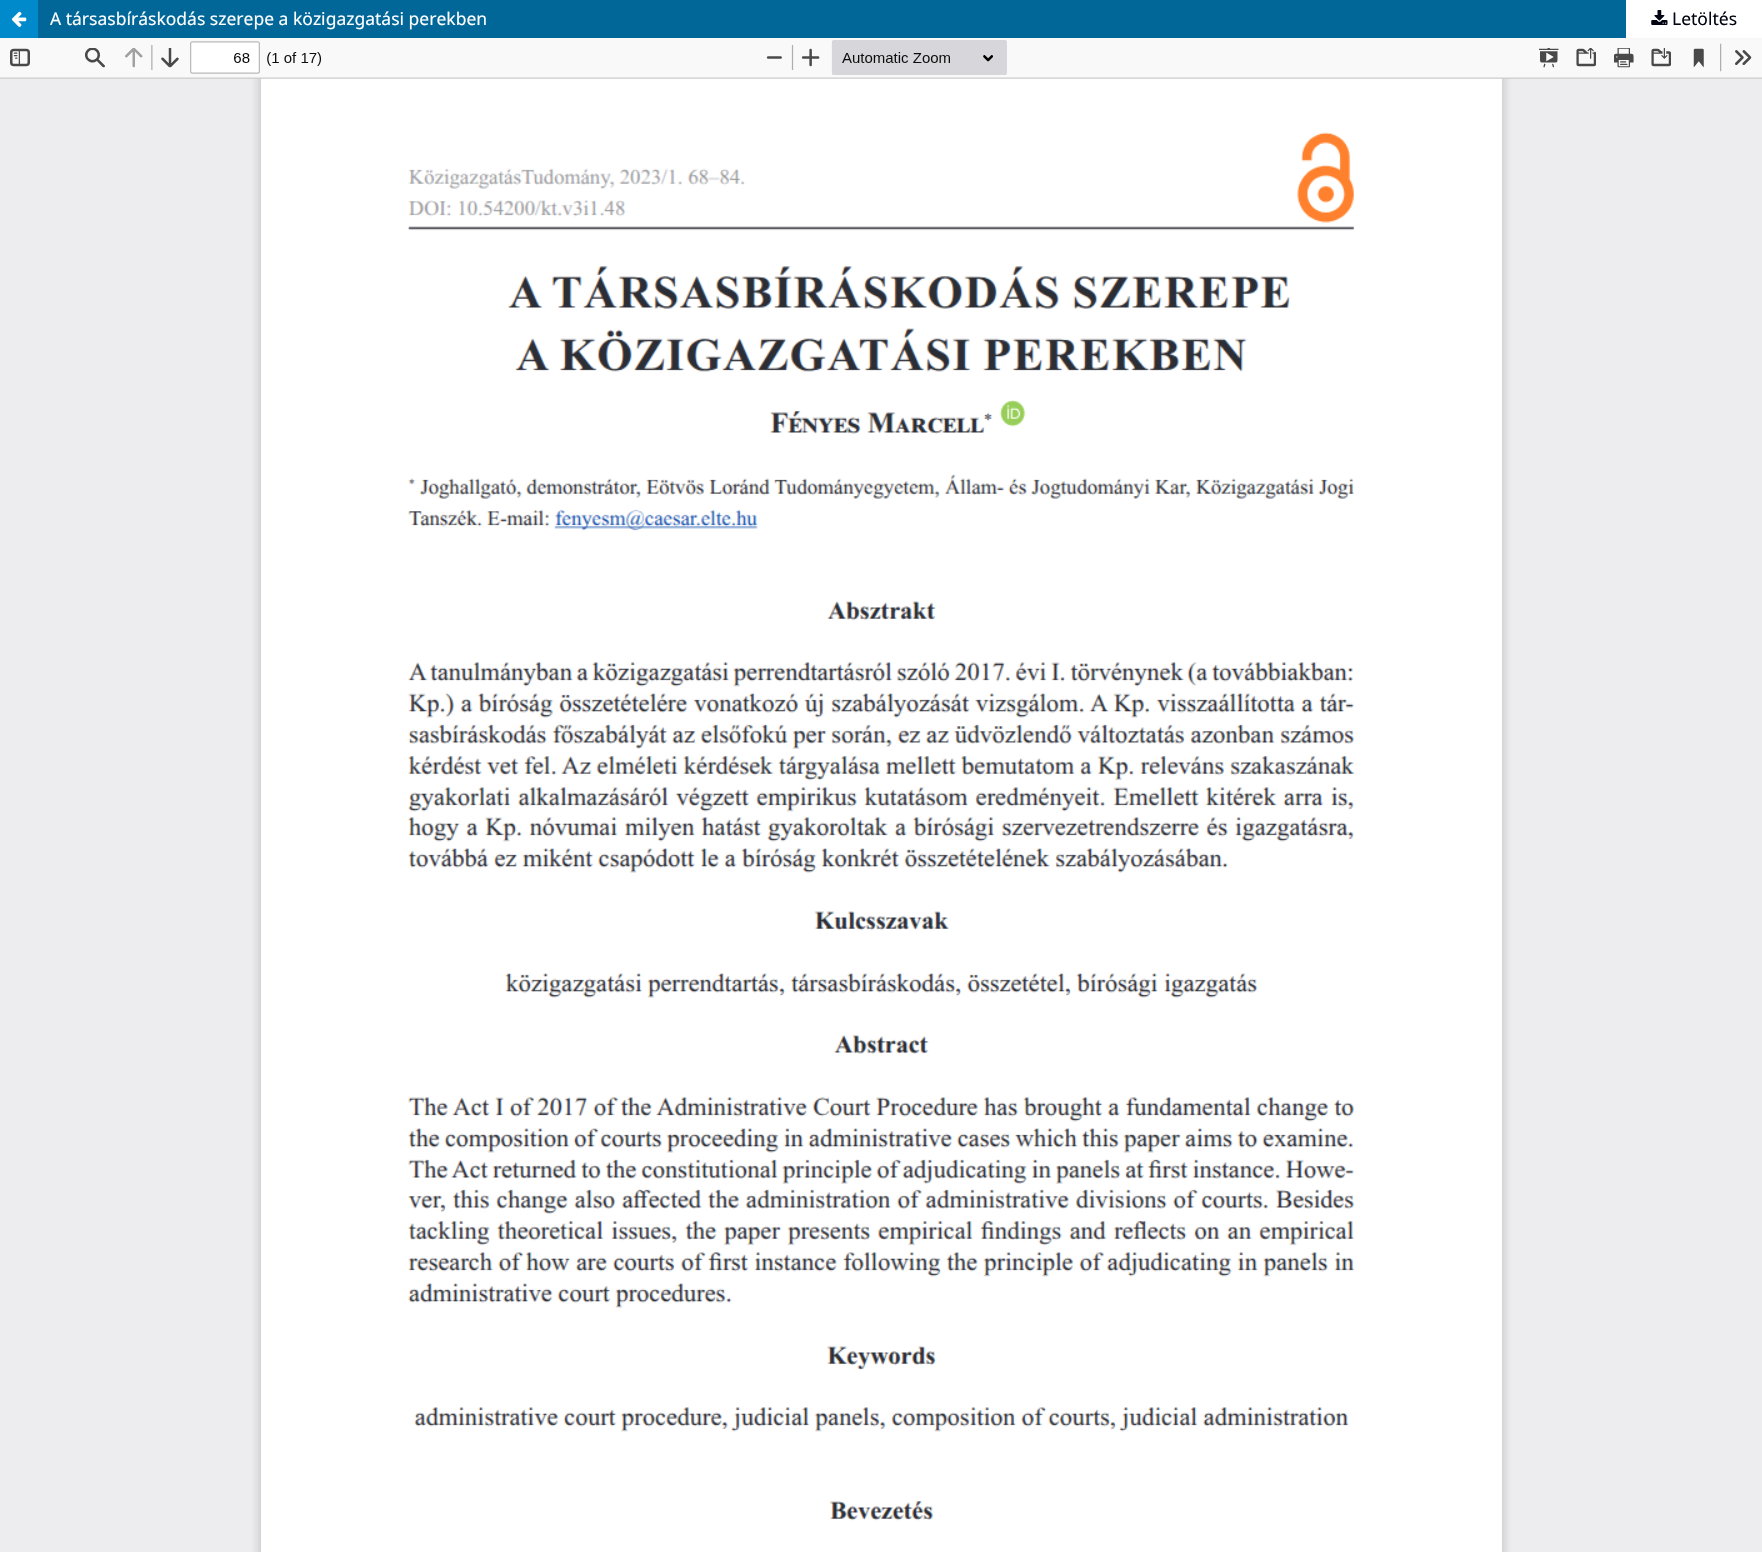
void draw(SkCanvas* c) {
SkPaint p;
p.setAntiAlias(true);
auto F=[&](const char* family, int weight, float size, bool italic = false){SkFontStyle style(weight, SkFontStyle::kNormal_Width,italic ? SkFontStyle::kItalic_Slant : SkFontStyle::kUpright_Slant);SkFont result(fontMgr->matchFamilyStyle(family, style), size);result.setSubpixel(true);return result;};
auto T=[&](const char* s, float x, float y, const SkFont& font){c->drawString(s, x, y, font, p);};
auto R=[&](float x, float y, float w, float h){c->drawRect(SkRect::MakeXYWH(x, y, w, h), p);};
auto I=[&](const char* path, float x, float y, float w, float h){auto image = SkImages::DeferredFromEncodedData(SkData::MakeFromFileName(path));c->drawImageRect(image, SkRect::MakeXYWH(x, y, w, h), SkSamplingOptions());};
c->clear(0xfff8f8f8);
p.setColor(0xff006798);
R(38,0,1588,38);
p.setColor(0xff008acb);
R(0,0,38,38);
I("1.png",11,11,16,16);
auto f1 = F("Noto Sans",400,17.5);
p.setColor(0xffffffff);
T("A társasbíráskodás szerepe a közigazgatási perekben",50,25,f1);
R(1626,0,136,38);
I("2.png",1651,10,17,15);
p.setColor(0xff020412);
T("Letöltés",1672,25,f1);
I("3.png",0,40,1762,1512);
}
